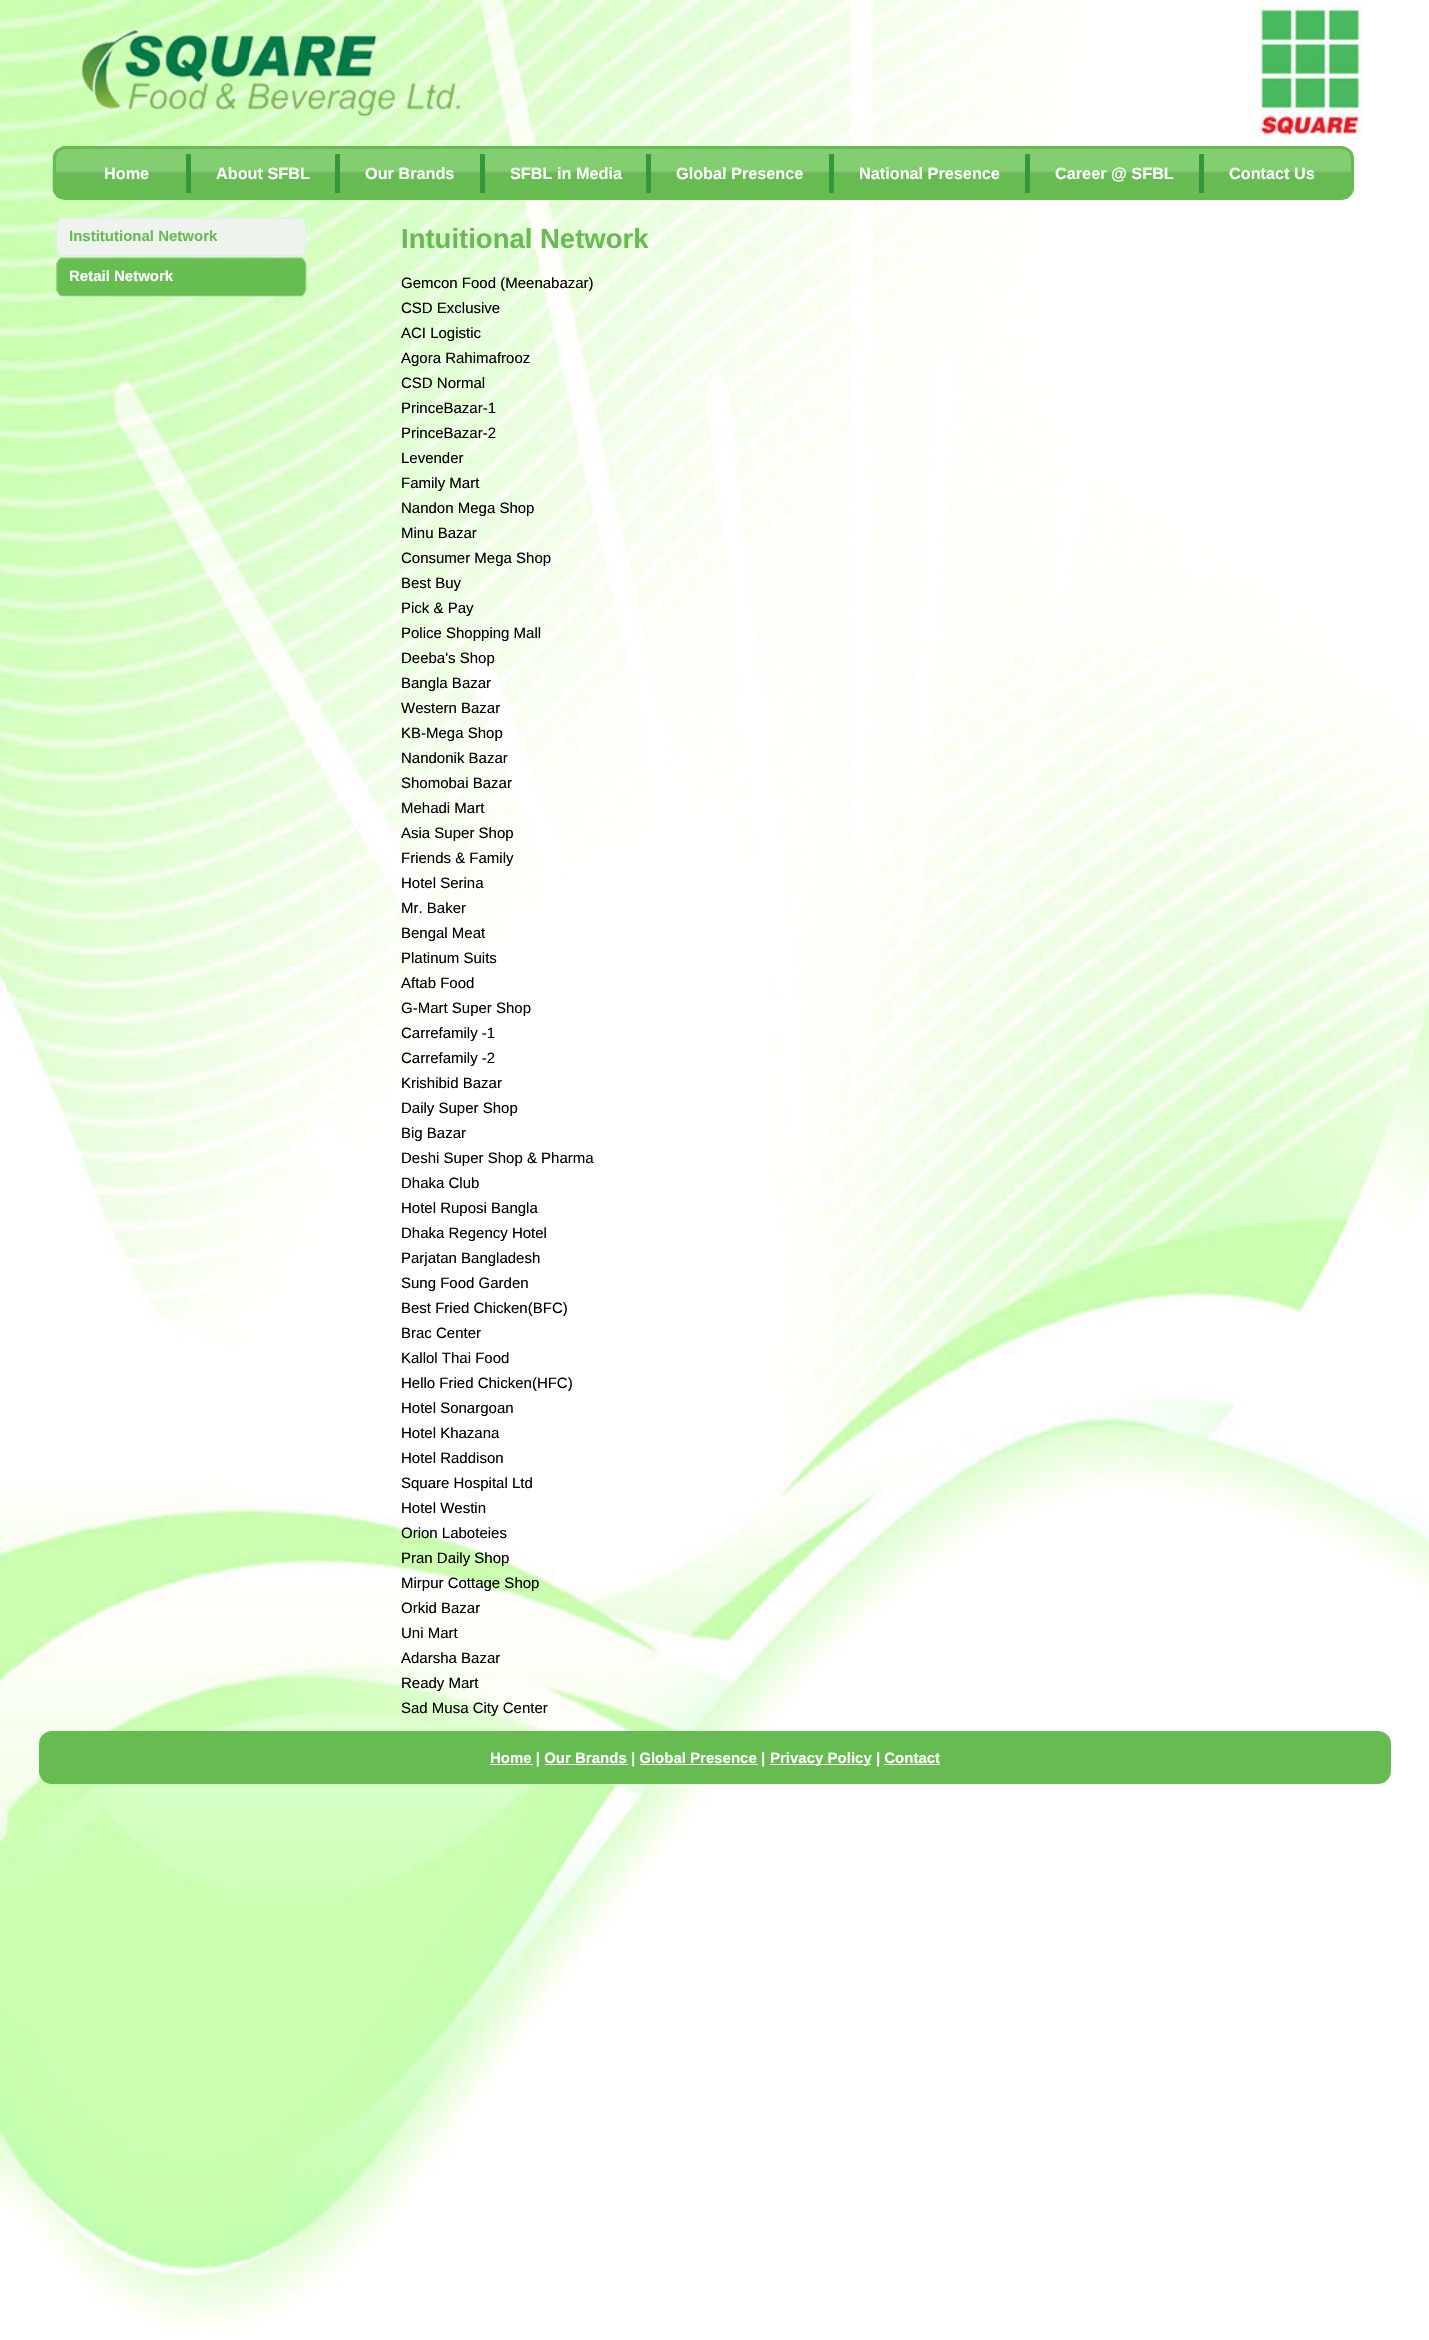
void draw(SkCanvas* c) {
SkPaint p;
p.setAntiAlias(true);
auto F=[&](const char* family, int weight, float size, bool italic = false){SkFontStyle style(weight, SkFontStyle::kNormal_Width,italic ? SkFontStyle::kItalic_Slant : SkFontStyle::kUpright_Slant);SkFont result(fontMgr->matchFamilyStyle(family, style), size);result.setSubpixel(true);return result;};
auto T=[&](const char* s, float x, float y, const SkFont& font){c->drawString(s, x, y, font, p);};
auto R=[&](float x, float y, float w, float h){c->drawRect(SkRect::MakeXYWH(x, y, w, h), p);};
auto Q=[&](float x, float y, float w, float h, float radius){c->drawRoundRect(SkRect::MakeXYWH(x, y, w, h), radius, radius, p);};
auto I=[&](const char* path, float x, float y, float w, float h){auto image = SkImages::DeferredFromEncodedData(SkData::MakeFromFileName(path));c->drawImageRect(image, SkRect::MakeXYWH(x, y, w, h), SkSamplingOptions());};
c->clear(0xffffffff);
I("1.png",0,0,1429,2332);
I("2.png",81,30,380,87);
I("3.png",1254,4,110,136);
I("4.png",52,148,1302,51);
p.setStroke(true);
p.setStrokeWidth(3);
p.setColor(0xff66bc51);
c->drawRoundRect(SkRect::MakeXYWH(54.5,147.5,1298,51),11.5,11.5,p);
p.setStroke(false);
p.setColor(0xff35973d);
R(186,154,5,39);
auto f1 = F("Liberation Sans",700,16.25);
p.setColor(0xffffffff);
T("Home",104,179,f1);
p.setColor(0xff35973d);
R(335,154,5,39);
p.setColor(0xffffffff);
T("About SFBL",216,179,f1);
p.setColor(0xff35973d);
R(480,154,5,39);
p.setColor(0xffffffff);
T("Our Brands",365,179,f1);
p.setColor(0xff35973d);
R(646,154,5,39);
p.setColor(0xffffffff);
T("SFBL in Media",510,179,f1);
p.setColor(0xff35973d);
R(829,154,5,39);
p.setColor(0xffffffff);
T("Global Presence",676,179,f1);
p.setColor(0xff35973d);
R(1025,154,5,39);
p.setColor(0xffffffff);
T("National Presence",859,179,f1);
p.setColor(0xff35973d);
R(1199,154,5,39);
p.setColor(0xffffffff);
T("Career @ SFBL",1055,179,f1);
T("Contact Us",1229,179,f1);
I("5.png",56,217,251,40);
auto f2 = F("Liberation Sans",700,15);
p.setColor(0xff66bc51);
T("Institutional Network",69,241,f2);
I("6.png",56,257,251,40);
p.setColor(0xffffffff);
T("Retail Network",69,281,f2);
auto f3 = F("Liberation Sans",700,27.5);
p.setColor(0xff66bc51);
T("Intuitional Network",401,248,f3);
auto f4 = F("Liberation Sans",400,15);
p.setColor(0xff000000);
T("Gemcon Food (Meenabazar)",401,288,f4);
T("CSD Exclusive",401,313,f4);
T("ACI Logistic",401,338,f4);
T("Agora Rahimafrooz",401,363,f4);
T("CSD Normal",401,388,f4);
T("PrinceBazar-1",401,413,f4);
T("PrinceBazar-2",401,438,f4);
T("Levender",401,463,f4);
T("Family Mart",401,488,f4);
T("Nandon Mega Shop",401,513,f4);
T("Minu Bazar",401,538,f4);
T("Consumer Mega Shop",401,563,f4);
T("Best Buy",401,588,f4);
T("Pick & Pay",401,613,f4);
T("Police Shopping Mall",401,638,f4);
T("Deeba's Shop",401,663,f4);
T("Bangla Bazar",401,688,f4);
T("Western Bazar",401,713,f4);
T("KB-Mega Shop",401,738,f4);
T("Nandonik Bazar",401,763,f4);
T("Shomobai Bazar",401,788,f4);
T("Mehadi Mart",401,813,f4);
T("Asia Super Shop",401,838,f4);
T("Friends & Family",401,863,f4);
T("Hotel Serina",401,888,f4);
T("Mr. Baker",401,913,f4);
T("Bengal Meat",401,938,f4);
T("Platinum Suits",401,963,f4);
T("Aftab Food",401,988,f4);
T("G-Mart Super Shop",401,1013,f4);
T("Carrefamily -1",401,1038,f4);
T("Carrefamily -2",401,1063,f4);
T("Krishibid Bazar",401,1088,f4);
T("Daily Super Shop",401,1113,f4);
T("Big Bazar",401,1138,f4);
T("Deshi Super Shop & Pharma",401,1163,f4);
T("Dhaka Club",401,1188,f4);
T("Hotel Ruposi Bangla",401,1213,f4);
T("Dhaka Regency Hotel",401,1238,f4);
T("Parjatan Bangladesh",401,1263,f4);
T("Sung Food Garden",401,1288,f4);
T("Best Fried Chicken(BFC)",401,1313,f4);
T("Brac Center",401,1338,f4);
T("Kallol Thai Food",401,1363,f4);
T("Hello Fried Chicken(HFC)",401,1388,f4);
T("Hotel Sonargoan",401,1413,f4);
T("Hotel Khazana",401,1438,f4);
T("Hotel Raddison",401,1463,f4);
T("Square Hospital Ltd",401,1488,f4);
T("Hotel Westin",401,1513,f4);
T("Orion Laboteies",401,1538,f4);
T("Pran Daily Shop",401,1563,f4);
T("Mirpur Cottage Shop",401,1588,f4);
T("Orkid Bazar",401,1613,f4);
T("Uni Mart",401,1638,f4);
T("Adarsha Bazar",401,1663,f4);
T("Ready Mart",401,1688,f4);
T("Sad Musa City Center",401,1713,f4);
p.setColor(0xff66bc51);
Q(39,1731,1352,53,13);
p.setColor(0xffffffff);
R(490,1764,43,1);
T("Home | Our Brands | Global Presence |",490,1763,f2);
R(545,1764,83,1);
R(640,1764,118,1);
R(770,1764,101,1);
T("Privacy Policy | Contact",770,1763,f2);
R(884,1764,56,1);
}
